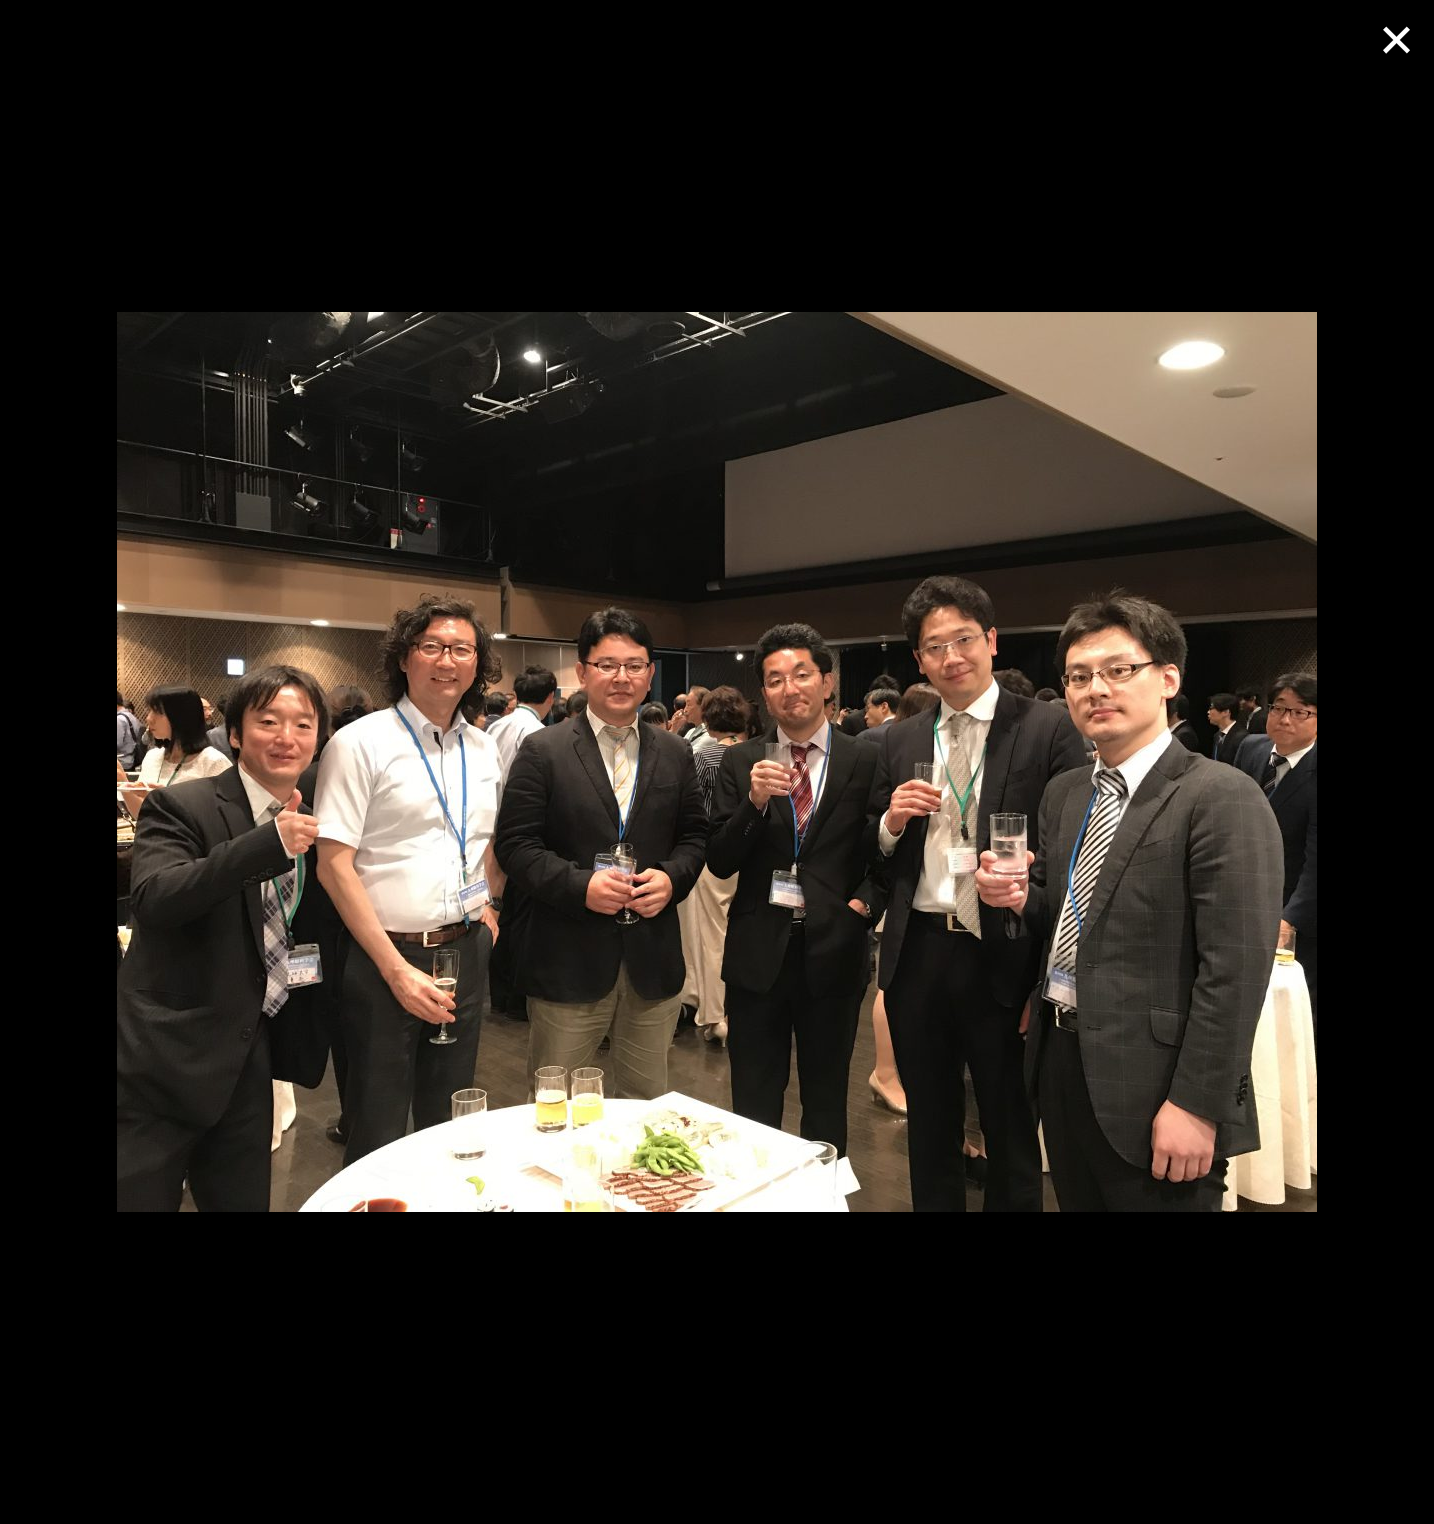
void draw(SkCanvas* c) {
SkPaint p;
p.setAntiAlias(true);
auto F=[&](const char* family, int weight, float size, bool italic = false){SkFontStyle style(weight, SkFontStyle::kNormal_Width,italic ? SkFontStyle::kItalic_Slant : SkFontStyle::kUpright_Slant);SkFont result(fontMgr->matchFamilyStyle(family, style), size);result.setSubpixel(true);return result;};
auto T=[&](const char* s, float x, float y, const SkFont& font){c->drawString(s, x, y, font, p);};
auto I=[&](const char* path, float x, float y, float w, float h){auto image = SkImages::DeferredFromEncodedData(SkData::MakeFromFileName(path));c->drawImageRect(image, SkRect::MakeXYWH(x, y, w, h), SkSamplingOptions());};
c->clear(0xff000000);
auto f1 = F("Liberation Sans",400,60);
p.setColor(0xffffffff);
T("×",1379,60,f1);
I("1.png",117,312,1200,900);
}
